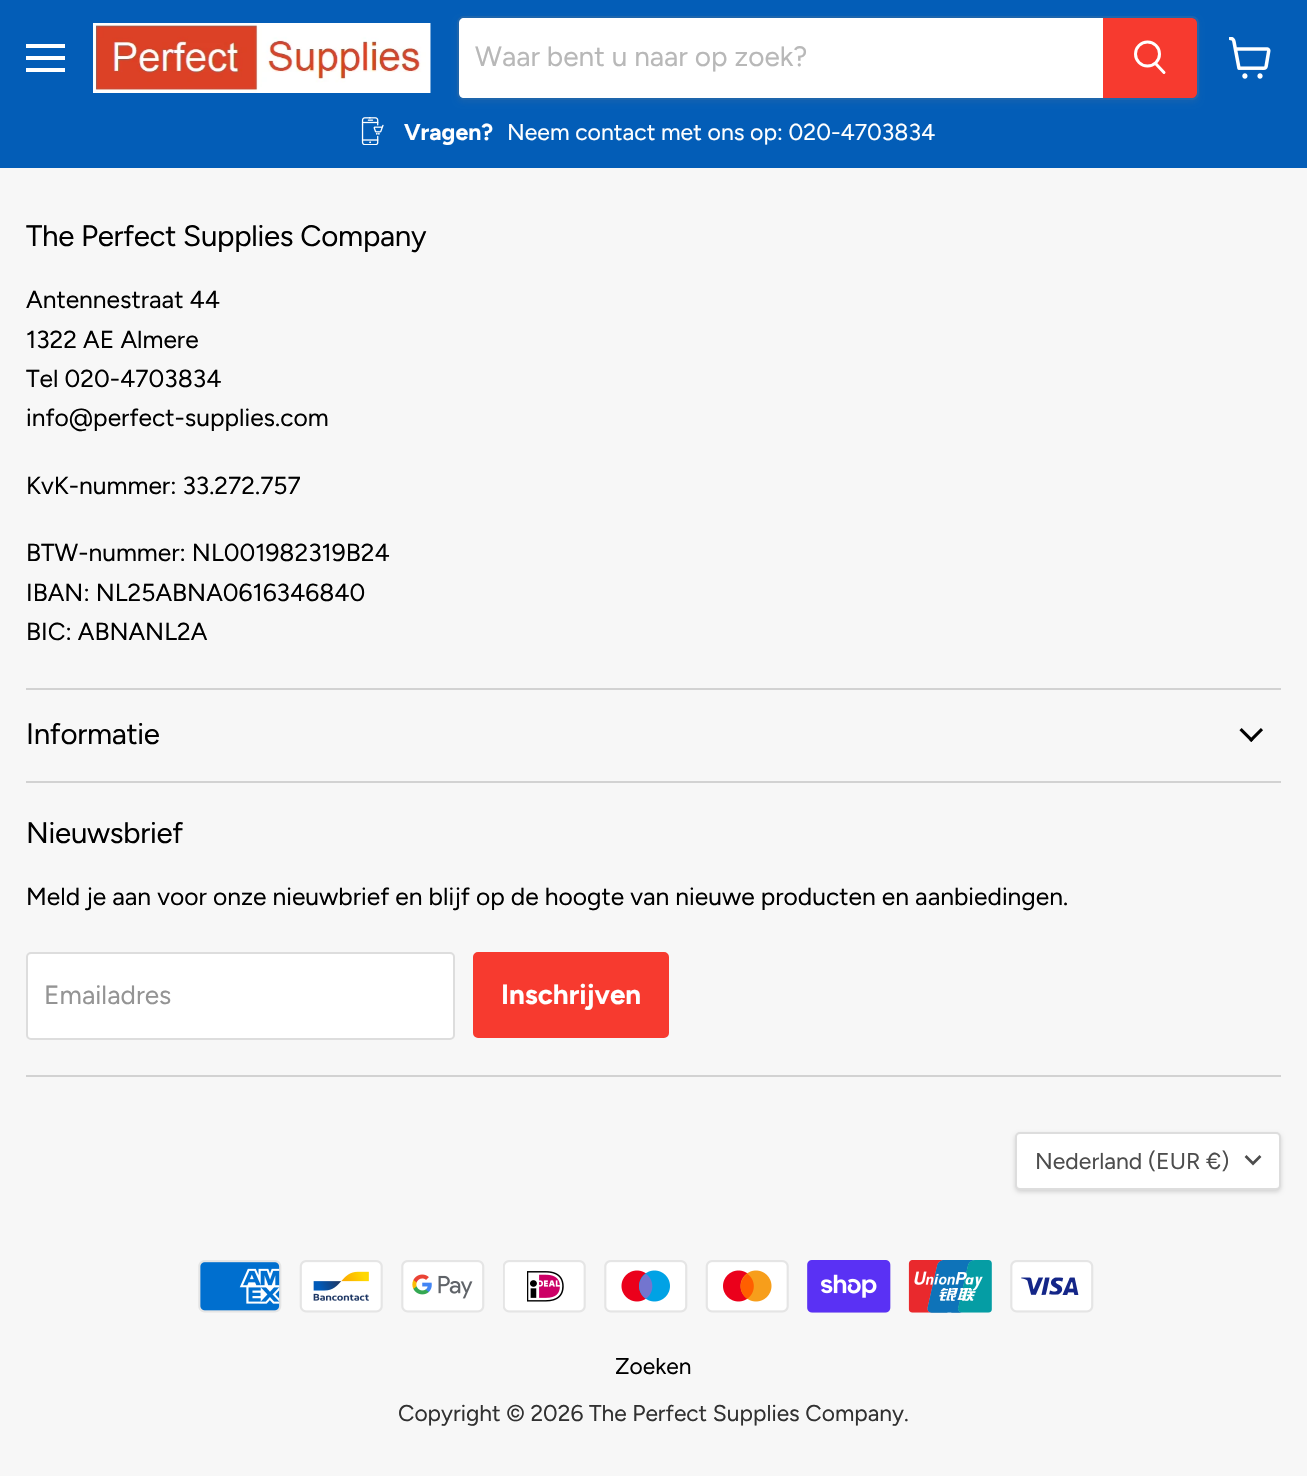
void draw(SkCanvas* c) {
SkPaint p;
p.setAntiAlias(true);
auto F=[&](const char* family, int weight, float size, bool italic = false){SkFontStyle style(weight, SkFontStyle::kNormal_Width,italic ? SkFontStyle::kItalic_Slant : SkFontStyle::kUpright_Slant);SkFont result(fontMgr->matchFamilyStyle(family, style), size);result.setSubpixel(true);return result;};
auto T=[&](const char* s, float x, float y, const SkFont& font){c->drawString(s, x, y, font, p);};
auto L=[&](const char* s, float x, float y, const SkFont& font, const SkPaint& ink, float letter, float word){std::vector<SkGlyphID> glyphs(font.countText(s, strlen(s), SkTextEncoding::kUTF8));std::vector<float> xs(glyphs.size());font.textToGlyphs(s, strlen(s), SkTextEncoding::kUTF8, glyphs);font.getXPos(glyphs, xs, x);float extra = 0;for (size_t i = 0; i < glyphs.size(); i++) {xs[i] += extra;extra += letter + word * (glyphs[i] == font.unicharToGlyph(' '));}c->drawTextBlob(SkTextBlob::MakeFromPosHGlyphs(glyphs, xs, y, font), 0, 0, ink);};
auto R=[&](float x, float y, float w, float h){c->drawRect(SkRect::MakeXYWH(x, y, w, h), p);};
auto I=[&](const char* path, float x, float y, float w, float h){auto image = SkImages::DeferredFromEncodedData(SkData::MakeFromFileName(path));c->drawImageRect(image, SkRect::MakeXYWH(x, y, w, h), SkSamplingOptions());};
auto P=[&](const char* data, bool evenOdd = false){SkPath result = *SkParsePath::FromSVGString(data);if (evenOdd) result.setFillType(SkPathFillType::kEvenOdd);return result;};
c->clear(0xfff7f7f7);
p.setColor(0xff035db7);
R(0,0,1307,168);
p.setColor(0xffffffff);
R(26,44,39,4);
R(26,56,39,4);
R(26,68,39,4);
I("1.png",93,23,338,70);
c->save();
c->clipPath(P("M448 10h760v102h-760zm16 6h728c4 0 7 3 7 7v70c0 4-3 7-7 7h-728c-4 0-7-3-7-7v-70c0-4 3-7 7-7z",true),true);
p.setColor(0x1c808080);
p.setMaskFilter(SkMaskFilter::MakeBlur(kNormal_SkBlurStyle, 2.5));
c->drawRoundRect(SkRect::MakeXYWH(457,19,742,84),7,7,p);
p.setMaskFilter(nullptr);
c->restore();
p.setStroke(true);
p.setStrokeWidth(2);
p.setColor(0x33808080);
c->drawRoundRect(SkRect::MakeXYWH(458,17,740,82),6,6,p);
p.setStroke(false);
p.setColor(0xffffffff);
c->drawPath(P("M464 18h639v80h-639c-3 0-5-2-5-5v-70c0-3 2-5 5-5z"),p);
auto f1 = F("Figtree",400,28);
p.setColor(0xffb8b8b8);
T("Waar bent u naar op zoek?",475,66,f1);
p.setColor(0xfff73a2f);
c->drawPath(P("M1104 19h88c2 0 4 2 4 4v70c0 2-2 4-4 4h-88z"),p);
p.setStroke(true);
c->drawPath(P("M1104 19h88c2 0 4 2 4 4v70c0 2-2 4-4 4h-88z"),p);
p.setStrokeWidth(3);
p.setStrokeCap(SkPaint::kRound_Cap);
p.setColor(0xffffffff);
c->drawPath(P("M1164 72.5l-8-8.5"),p);
p.setStrokeCap(SkPaint::kButt_Cap);
c->drawCircle(1147.5,54,12,p);
I("2.png",361,117,23,28);
auto f2 = F("Figtree",700,23);
p.setStroke(false);
T("Vragen?",404,140,f2);
auto f3 = F("Figtree",400,23);
T("Neem contact met ons op: 020-4703834",507,140,f3);
I("3.png",1229,37,42,42);
p.setColor(0xffd2d2d2);
R(26,688,1255,2);
auto f4 = F("Figtree",400,29.5);
p.setColor(0xff000000);
L("The Perfect Supplies Company",26,246,f4,p,-.3,0);
auto f5 = F("Figtree",400,24.6);
T("Antennestraat 44",26,308,f5);
T("1322 AE Almere",26,348,f5);
T("Tel 020-4703834",26,387,f5);
T("info@perfect-supplies.com",26,426,f5);
T("KvK-nummer: 33.272.757",26,494,f5);
T("BTW-nummer: NL001982319B24",26,561,f5);
T("IBAN: NL25ABNA0616346840",26,601,f5);
T("BIC: ABNANL2A",26,640,f5);
p.setColor(0xffd2d2d2);
R(26,781,1255,2);
p.setColor(0xff000000);
L("Informatie",26,744,f4,p,-.3,0);
I("4.png",1239,728,24,14);
p.setColor(0xffd2d2d2);
R(26,1075,1255,2);
p.setColor(0xff000000);
L("Nieuwsbrief",26,843,f4,p,-.3,0);
T("Meld je aan voor onze nieuwbrief en blijf op de hoogte van nieuwe producten en aanbiedingen.",26,905,f5);
p.setColor(0xffffffff);
c->drawRoundRect(SkRect::MakeXYWH(27,953,427,86),4,4,p);
p.setStroke(true);
p.setStrokeWidth(2);
p.setColor(0xffdddddd);
c->drawRoundRect(SkRect::MakeXYWH(27,953,427,86),4,4,p);
auto f6 = F("Figtree",400,26.25);
p.setStroke(false);
p.setColor(0xff949494);
T("Emailadres",44,1004,f6);
p.setColor(0xfff73a2f);
c->drawRoundRect(SkRect::MakeXYWH(474,953,194,84),4,4,p);
p.setStroke(true);
c->drawRoundRect(SkRect::MakeXYWH(474,953,194,84),4,4,p);
auto f7 = F("Figtree",700,27.75);
p.setStroke(false);
p.setColor(0xffffffff);
T("Inschrijven",501,1004,f7);
p.setColor(0x26000000);
p.setMaskFilter(SkMaskFilter::MakeBlur(kNormal_SkBlurStyle, 2));
c->drawRoundRect(SkRect::MakeXYWH(1015,1134,266,58),5,5,p);
p.setMaskFilter(nullptr);
p.setColor(0xffffffff);
c->drawRoundRect(SkRect::MakeXYWH(1016,1133,264,56),4,4,p);
p.setStroke(true);
p.setColor(0xffdddddd);
c->drawRoundRect(SkRect::MakeXYWH(1016,1133,264,56),4,4,p);
p.setStroke(false);
p.setColor(0xff4d4d4d);
T("Nederland (EUR €)",1035,1169,f3);
p.setStroke(true);
p.setStrokeWidth(2.7);
p.setStrokeCap(SkPaint::kSquare_Cap);
c->drawPath(P("M1253 1163.5l6.5-6.5m-6.5 6.5l-6.5-6.5"),p);
I("5.png",198,1260,84,53);
I("6.png",299,1260,84,53);
I("7.png",401,1260,84,53);
I("8.png",503,1260,83,53);
I("9.png",604,1260,84,53);
I("10.png",705,1260,84,53);
I("11.png",807,1260,84,53);
I("12.png",908,1260,84,53);
I("13.png",1010,1260,84,53);
auto f8 = F("Figtree",400,22.75);
p.setStroke(false);
p.setColor(0xff000000);
T("Zoeken",615,1374,f8);
p.setColor(0xff313131);
T("Copyright © 2026 The Perfect Supplies Company.",398,1421,f8);
}
